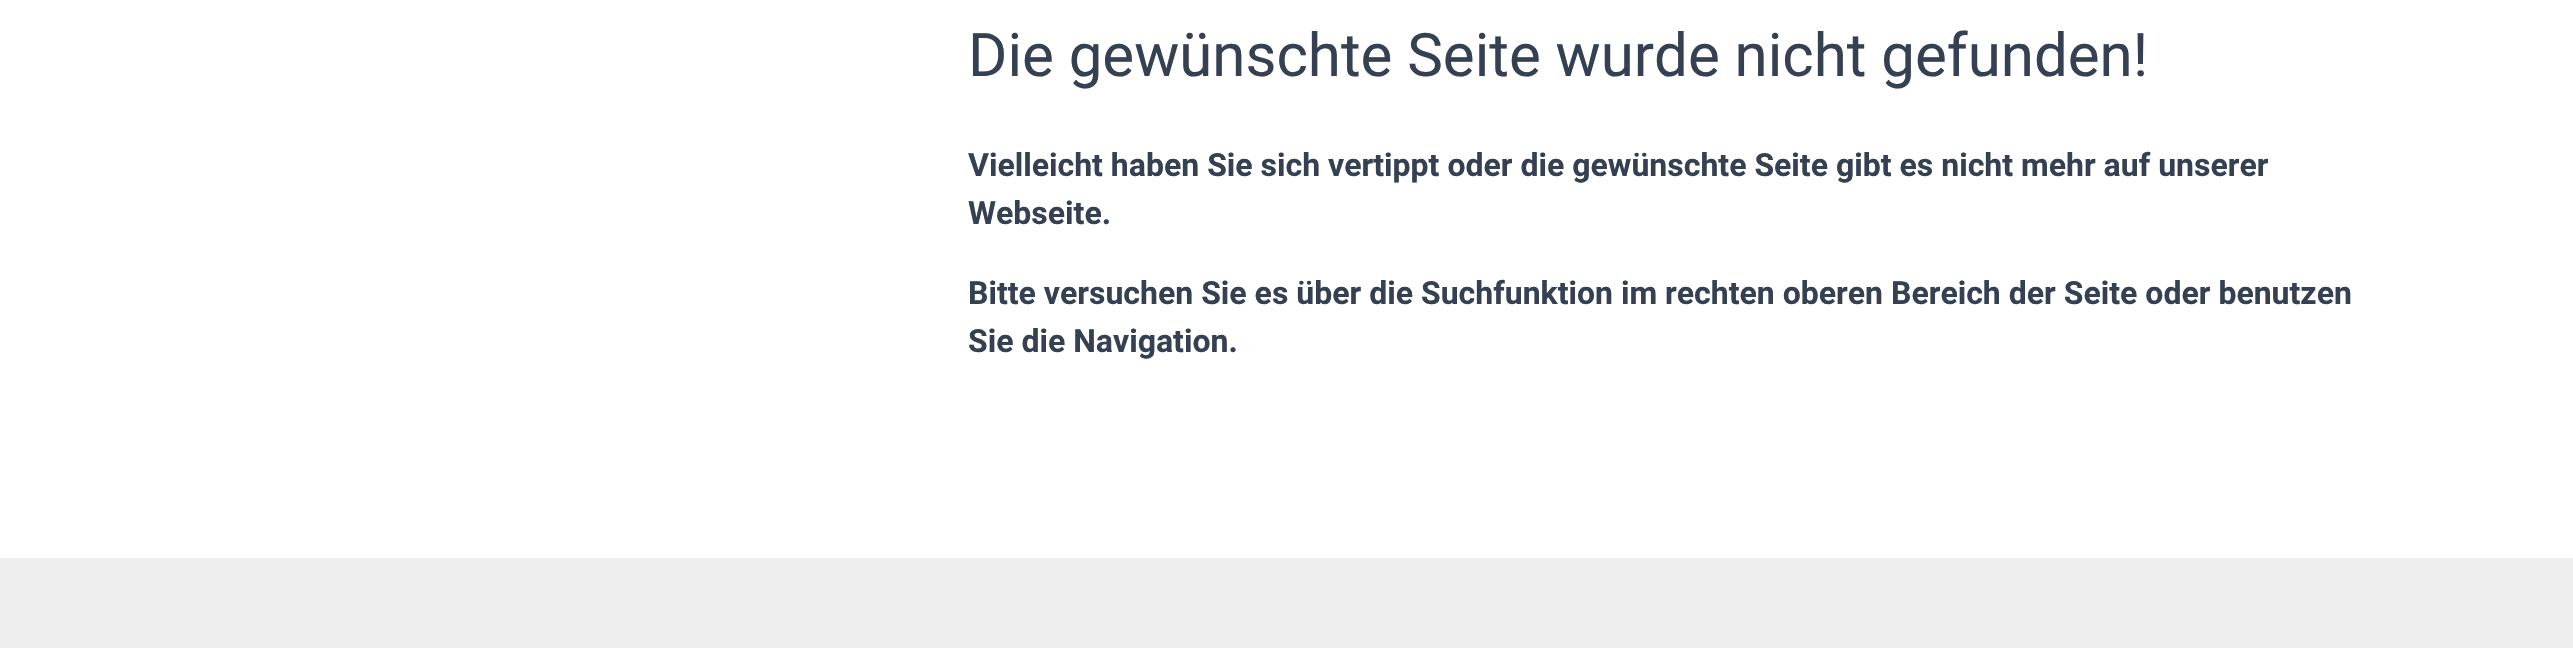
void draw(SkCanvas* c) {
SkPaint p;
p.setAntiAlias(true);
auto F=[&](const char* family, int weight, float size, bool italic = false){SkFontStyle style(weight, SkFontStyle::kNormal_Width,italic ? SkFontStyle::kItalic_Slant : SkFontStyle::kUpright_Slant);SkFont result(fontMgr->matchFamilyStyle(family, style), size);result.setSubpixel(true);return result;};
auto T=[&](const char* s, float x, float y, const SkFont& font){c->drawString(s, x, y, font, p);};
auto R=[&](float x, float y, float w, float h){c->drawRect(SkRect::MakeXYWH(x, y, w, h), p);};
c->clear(0xffffffff);
auto f1 = F("Roboto",400,60);
p.setColor(0xff354052);
T("Die gewünschte Seite wurde nicht gefunden!",968,76,f1);
auto f2 = F("Roboto",700,32);
T("Vielleicht haben Sie sich vertippt oder die gewünschte Seite gibt es nicht mehr auf unserer",968,176,f2);
T("Webseite.",968,224,f2);
T("Bitte versuchen Sie es über die Suchfunktion im rechten oberen Bereich der Seite oder benutzen",968,304,f2);
T("Sie die Navigation.",968,352,f2);
p.setColor(0xffeeeeee);
R(0,558,2573,90);
}
